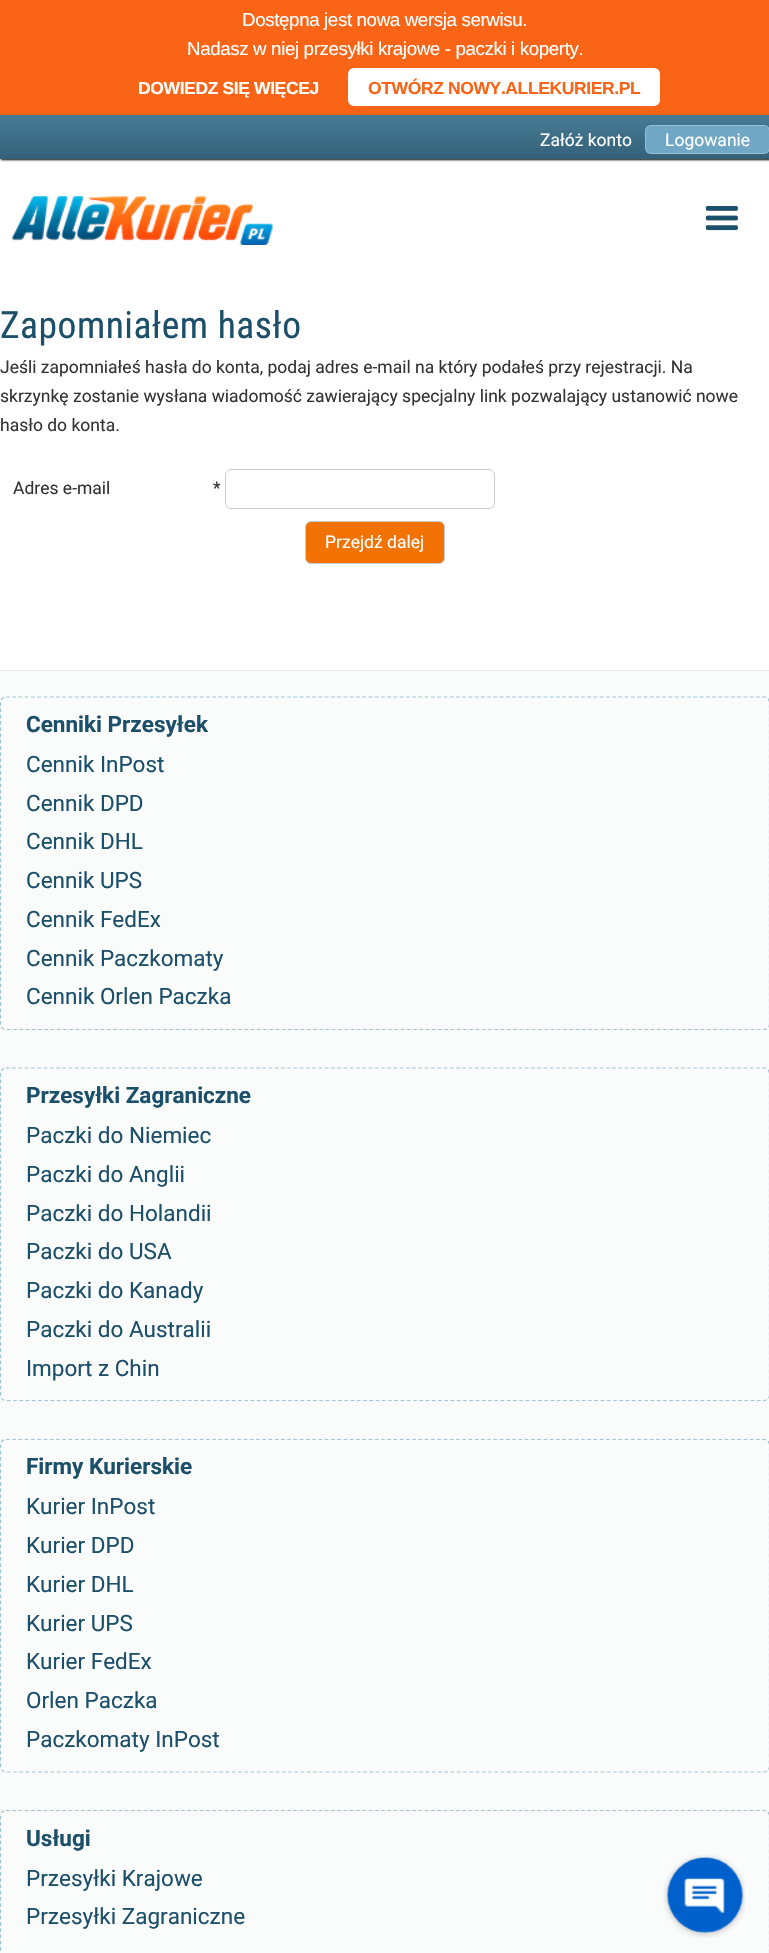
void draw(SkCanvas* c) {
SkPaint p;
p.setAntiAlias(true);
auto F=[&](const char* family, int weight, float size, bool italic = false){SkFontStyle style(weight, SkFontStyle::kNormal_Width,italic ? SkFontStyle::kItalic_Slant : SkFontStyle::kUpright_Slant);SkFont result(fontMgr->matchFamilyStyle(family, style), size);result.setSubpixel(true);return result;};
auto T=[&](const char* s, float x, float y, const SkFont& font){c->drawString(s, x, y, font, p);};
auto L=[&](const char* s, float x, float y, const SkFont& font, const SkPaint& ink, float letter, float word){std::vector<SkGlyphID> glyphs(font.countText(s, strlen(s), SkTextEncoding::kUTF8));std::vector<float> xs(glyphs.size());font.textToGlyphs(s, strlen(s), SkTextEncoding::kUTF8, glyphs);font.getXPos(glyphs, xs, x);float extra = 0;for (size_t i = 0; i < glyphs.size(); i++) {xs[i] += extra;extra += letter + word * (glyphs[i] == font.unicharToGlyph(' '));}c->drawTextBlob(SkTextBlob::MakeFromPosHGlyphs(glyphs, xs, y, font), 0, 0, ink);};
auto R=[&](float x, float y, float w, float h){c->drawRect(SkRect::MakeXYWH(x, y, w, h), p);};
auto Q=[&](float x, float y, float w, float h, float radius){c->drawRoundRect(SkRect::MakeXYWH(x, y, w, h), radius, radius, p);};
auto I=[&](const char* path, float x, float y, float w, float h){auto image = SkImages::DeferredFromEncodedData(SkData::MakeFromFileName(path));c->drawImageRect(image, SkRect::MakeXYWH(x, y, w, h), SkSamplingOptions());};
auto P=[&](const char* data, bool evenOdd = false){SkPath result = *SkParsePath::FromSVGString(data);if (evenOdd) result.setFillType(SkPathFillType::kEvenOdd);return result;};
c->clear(0xffffffff);
p.setColor(0xfff96416);
R(0,0,769,115);
auto f1 = F("Liberation Sans",400,18.75);
p.setColor(0xffffffff);
L("Dostępna jest nowa wersja serwisu.",242,26,f1,p,-.38,0);
L("Nadasz w niej przesyłki krajowe - paczki i koperty.",187,55,f1,p,-.38,0);
auto f2 = F("Liberation Sans",700,17.5);
L("DOWIEDZ SIĘ WIĘCEJ",138,94,f2,p,-.38,0);
Q(348,68,312,38,6);
p.setStroke(true);
p.setStrokeWidth(1);
p.setColor(0x45ffffff);
c->drawRoundRect(SkRect::MakeXYWH(348.5,68.5,311,37),5.5,5.5,p);
p.setStroke(false);
p.setColor(0xfff96416);
L("OTWÓRZ NOWY.ALLEKURIER.PL",368,94,f2,p,-.38,0);
p.setColor(0xff000000);
p.setMaskFilter(SkMaskFilter::MakeBlur(kNormal_SkBlurStyle, 1));
c->drawRect(SkRect::MakeXYWH(1,116,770,44),p);
p.setMaskFilter(nullptr);
{
const SkColor colors[] = {0xff477b96,0xff336178};
const float stops[] = {0,1};
const SkPoint ends[] = {{385,115}, {385,159}};
p.setShader(SkGradientShader::MakeLinear(ends, colors, stops, 2, SkTileMode::kClamp));
p.setAlpha(255);
}
R(0,115,769,44);
auto f3 = F("Roboto",400,17.5);
p.setShader(nullptr);
p.setColor(0xffffffff);
T("Załóż konto",540,146,f3);
p.setColor(0xff6fa7c4);
Q(645,125,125,29,6);
p.setStroke(true);
p.setColor(0x45ffffff);
c->drawRoundRect(SkRect::MakeXYWH(645.5,125.5,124,28),5.5,5.5,p);
p.setStroke(false);
p.setColor(0xffffffff);
T("Logowanie",665,146,f3);
I("1.png",12,196,261,49);
I("2.png",705,206,33,25);
auto f4 = F("Roboto Condensed",400,37.5);
p.setColor(0xff1c4f6a);
L("Zapomniałem hasło",0,338,f4,p,.5,0);
p.setColor(0xff333333);
T("Jeśli zapomniałeś hasła do konta, podaj adres e-mail na który podałeś przy rejestracji. Na",0,373,f3);
T("skrzynkę zostanie wysłana wiadomość zawierający specjalny link pozwalający ustanowić nowe",0,402,f3);
T("hasło do konta.",0,431,f3);
T("Adres e-mail",13,494,f3);
T("*",213,494,f3);
p.setStroke(true);
p.setColor(0xffcccccc);
c->drawRoundRect(SkRect::MakeXYWH(225.5,469.5,269,39),5.5,5.5,p);
p.setStroke(false);
p.setColor(0xfff27303);
c->drawRoundRect(SkRect::MakeXYWH(305.5,521.5,139,42),5.5,5.5,p);
p.setStroke(true);
p.setColor(0xffcccccc);
c->drawRoundRect(SkRect::MakeXYWH(305.5,521.5,139,42),5.5,5.5,p);
p.setStroke(false);
p.setColor(0xffffffff);
T("Przejdź dalej",325,548,f3);
p.setColor(0xfffafbfb);
R(0,671,769,1282);
p.setColor(0xffe9e9e9);
R(0,670,769,1);
p.setStroke(true);
p.setStrokeWidth(1.2);
p.setColor(0xff9ec5d6);
p.setPathEffect(SkDashPathEffect::Make({{3.75f,2.5f}}, 0));
c->drawPath(P("M6 697h758c3 0 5.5 2.5 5.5 5.5v321.5c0 3-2.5 5.5-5.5 5.5h-758c-3 0-5.5-2.5-5.5-5.5v-321.5c0-3 2.5-5.5 5.5-5.5z"),p);
p.setPathEffect(nullptr);
auto f5 = F("Roboto",700,22.5);
p.setStroke(false);
p.setColor(0xff1c4f6a);
T("Cenniki Przesyłek",26,732,f5);
auto f6 = F("Roboto",400,22.5);
T("Cennik InPost",26,772,f6);
T("Cennik DPD",26,811,f6);
T("Cennik DHL",26,849,f6);
T("Cennik UPS",26,888,f6);
T("Cennik FedEx",26,927,f6);
T("Cennik Paczkomaty",26,966,f6);
T("Cennik Orlen Paczka",26,1004,f6);
p.setStroke(true);
p.setColor(0xff9ec5d6);
p.setPathEffect(SkDashPathEffect::Make({{3.75f,2.5f}}, 0));
c->drawPath(P("M6 1068h758c3 0 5.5 2.5 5.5 6v321c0 3-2.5 5.5-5.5 5.5h-758c-3 0-5.5-2.5-5.5-5.5v-321c0-3.5 2.5-6 5.5-6z"),p);
p.setPathEffect(nullptr);
p.setStroke(false);
p.setColor(0xff1c4f6a);
T("Przesyłki Zagraniczne",26,1103,f5);
T("Paczki do Niemiec",26,1143,f6);
T("Paczki do Anglii",26,1182,f6);
T("Paczki do Holandii",26,1221,f6);
T("Paczki do USA",26,1259,f6);
T("Paczki do Kanady",26,1298,f6);
T("Paczki do Australii",26,1337,f6);
T("Import z Chin",26,1376,f6);
p.setStroke(true);
p.setColor(0xff9ec5d6);
p.setPathEffect(SkDashPathEffect::Make({{3.75f,2.5f}}, 0));
c->drawPath(P("M6 1439.5h758c3 0 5.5 2.5 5.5 5.5v321c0 3.5-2.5 6-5.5 6h-758c-3 0-5.5-2.5-5.5-6v-321c0-3 2.5-5.5 5.5-5.5z"),p);
p.setPathEffect(nullptr);
p.setStroke(false);
p.setColor(0xff1c4f6a);
T("Firmy Kurierskie",26,1474,f5);
T("Kurier InPost",26,1514,f6);
T("Kurier DPD",26,1553,f6);
T("Kurier DHL",26,1592,f6);
T("Kurier UPS",26,1631,f6);
T("Kurier FedEx",26,1669,f6);
T("Orlen Paczka",26,1708,f6);
T("Paczkomaty InPost",26,1747,f6);
p.setStroke(true);
p.setColor(0xff9ec5d6);
p.setPathEffect(SkDashPathEffect::Make({{3.75f,2.5f}}, 0));
c->drawPath(P("M6 1810.5h758c3 0 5.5 2.5 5.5 5.5v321.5c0 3-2.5 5.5-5.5 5.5h-758c-3 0-5.5-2.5-5.5-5.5v-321.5c0-3 2.5-5.5 5.5-5.5z"),p);
p.setPathEffect(nullptr);
p.setStroke(false);
p.setColor(0xff1c4f6a);
T("Usługi",26,1846,f5);
T("Przesyłki Krajowe",26,1886,f6);
T("Przesyłki Zagraniczne",26,1924,f6);
I("3.png",663,1854,82,84);
}
